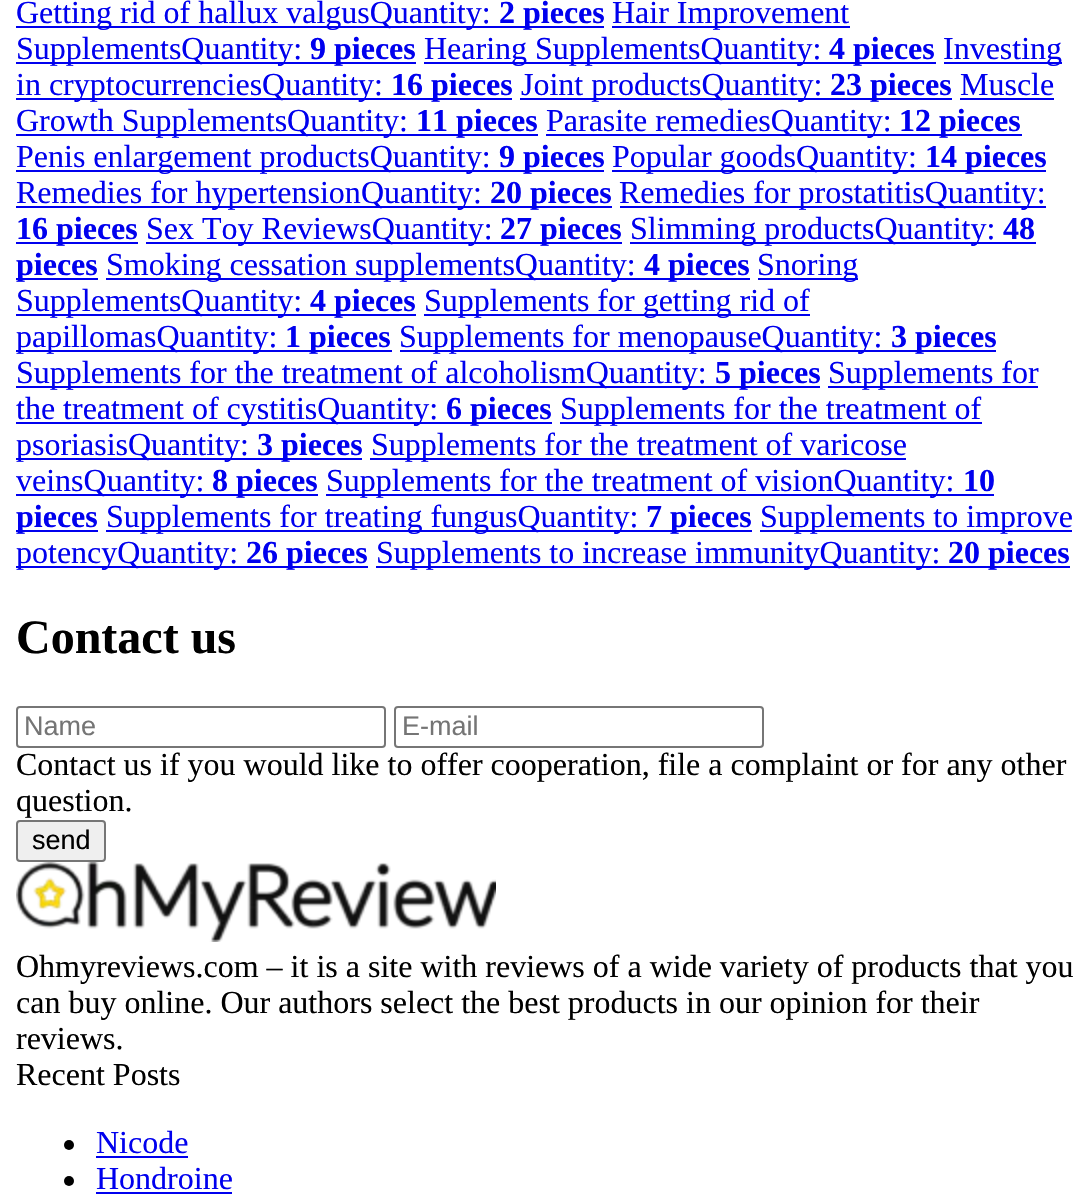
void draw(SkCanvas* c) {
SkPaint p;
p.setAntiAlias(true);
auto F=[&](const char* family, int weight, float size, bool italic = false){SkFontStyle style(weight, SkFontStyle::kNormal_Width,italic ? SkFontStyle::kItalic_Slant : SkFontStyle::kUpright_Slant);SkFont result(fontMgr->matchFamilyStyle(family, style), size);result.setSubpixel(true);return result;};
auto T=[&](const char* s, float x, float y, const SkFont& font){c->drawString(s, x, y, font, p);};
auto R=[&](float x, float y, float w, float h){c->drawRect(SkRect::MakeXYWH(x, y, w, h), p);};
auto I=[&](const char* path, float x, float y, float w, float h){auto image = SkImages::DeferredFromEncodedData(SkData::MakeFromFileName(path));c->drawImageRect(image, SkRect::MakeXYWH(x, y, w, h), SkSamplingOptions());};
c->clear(0xffffffff);
p.setColor(0xff0000ee);
R(16,26,588,2);
auto f1 = F("Liberation Serif",400,32);
T("Getting rid of hallux valgusQuantity:",16,23,f1);
auto f2 = F("Liberation Serif",700,32);
T("2 pieces",499,23,f2);
R(612,26,238,2);
T("Hair Improvement",612,23,f1);
R(16,62,400,2);
T("SupplementsQuantity:",16,59,f1);
T("9 pieces",310,59,f2);
R(424,62,512,2);
T("Hearing SupplementsQuantity:",424,59,f1);
T("4 pieces",829,59,f2);
R(944,62,118,2);
T("Investing",943,59,f1);
R(16,98,496,2);
T("in cryptocurrenciesQuantity:",16,95,f1);
T("16 pieces",391,95,f2);
R(520,98,432,2);
T("Joint productsQuantity:",521,95,f1);
T("23 pieces",830,95,f2);
T("Muscle",960,95,f1);
R(960,98,94,2);
R(16,134,522,2);
T("Growth SupplementsQuantity:",16,131,f1);
T("11 pieces",416,131,f2);
R(546,134,476,2);
T("Parasite remediesQuantity:",546,131,f1);
T("12 pieces",899,131,f2);
R(16,170,588,2);
T("Penis enlargement productsQuantity:",16,167,f1);
T("9 pieces",499,167,f2);
R(612,170,434,2);
T("Popular goodsQuantity:",612,167,f1);
T("14 pieces",925,167,f2);
R(16,206,344,2);
T("Remedies for hypertension",16,203,f1);
R(360,206,252,2);
T("Quantity:",361,203,f1);
T("20 pieces",490,203,f2);
R(620,206,426,2);
T("Remedies for prostatitisQuantity:",619,203,f1);
R(16,242,122,2);
T("16 pieces",16,239,f2);
R(146,242,476,2);
T("Sex Toy ReviewsQuantity:",146,239,f1);
T("27 pieces",500,239,f2);
R(630,242,406,2);
T("Slimming productsQuantity:",630,239,f1);
T("48",1003,239,f2);
R(16,278,82,2);
T("pieces",16,275,f2);
R(106,278,644,2);
T("Smoking cessation supplementsQuantity:",106,275,f1);
T("4 pieces",644,275,f2);
R(758,278,100,2);
T("Snoring",757,275,f1);
R(16,314,400,2);
T("SupplementsQuantity:",16,311,f1);
T("4 pieces",310,311,f2);
R(424,314,386,2);
T("Supplements for getting rid of",424,311,f1);
R(16,350,376,2);
T("papillomasQuantity:",16,347,f1);
T("1 pieces",285,347,f2);
R(400,350,596,2);
T("Supplements for menopauseQuantity:",399,347,f1);
T("3 pieces",891,347,f2);
R(16,386,804,2);
T("Supplements for the treatment of alcoholismQuantity:",16,383,f1);
T("5 pieces",715,383,f2);
R(828,386,210,2);
T("Supplements for",828,383,f1);
R(16,422,536,2);
T("the treatment of cystitisQuantity:",16,419,f1);
T("6 pieces",446,419,f2);
R(560,422,422,2);
T("Supplements for the treatment of",560,419,f1);
R(16,458,346,2);
T("psoriasisQuantity:",16,455,f1);
T("3 pieces",257,455,f2);
R(370,458,536,2);
T("Supplements for the treatment of varicose",371,455,f1);
R(16,494,302,2);
T("veinsQuantity:",16,491,f1);
T("8 pieces",212,491,f2);
R(326,494,668,2);
T("Supplements for the treatment of visionQuantity:",326,491,f1);
T("10",963,491,f2);
R(16,530,82,2);
T("pieces",16,527,f2);
R(106,530,646,2);
T("Supplements for treating fungusQuantity:",106,527,f1);
T("7 pieces",646,527,f2);
R(760,530,312,2);
T("Supplements to improve",760,527,f1);
R(16,566,352,2);
T("potencyQuantity:",16,563,f1);
T("26 pieces",246,563,f2);
R(376,566,694,2);
T("Supplements to increase immunityQuantity:",376,563,f1);
T("20 pieces",948,563,f2);
auto f3 = F("Liberation Serif",700,48);
p.setColor(0xff000000);
T("Contact us",16,653,f3);
p.setStroke(true);
p.setStrokeWidth(2);
p.setColor(0xff767676);
c->drawRoundRect(SkRect::MakeXYWH(17,707,368,40),3,3,p);
auto f4 = F("Liberation Sans",400,27);
p.setStroke(false);
p.setColor(0xff757575);
T("Name",24,735,f4);
p.setStroke(true);
p.setColor(0xff767676);
c->drawRoundRect(SkRect::MakeXYWH(395,707,368,40),3,3,p);
p.setStroke(false);
p.setColor(0xff757575);
T("E-mail",402,735,f4);
p.setColor(0xff000000);
T("Contact us if you would like to offer cooperation, file a complaint or for any other",16,775,f1);
T("question.",16,811,f1);
p.setColor(0xffefefef);
c->drawRoundRect(SkRect::MakeXYWH(17,821,88,40),3,3,p);
p.setStroke(true);
p.setColor(0xff767676);
c->drawRoundRect(SkRect::MakeXYWH(17,821,88,40),3,3,p);
p.setStroke(false);
p.setColor(0xff000000);
T("send",32,849,f4);
I("1.png",16,862,480,80);
T("Ohmyreviews.com – it is a site with reviews of a wide variety of products that you",16,977,f1);
T("can buy online. Our authors select the best products in our opinion for their",16,1013,f1);
T("reviews.",16,1049,f1);
T("Recent Posts",16,1085,f1);
c->drawCircle(69,1145,5,p);
p.setColor(0xff0000ee);
T("Nicode",96,1153,f1);
R(96,1156,92,2);
p.setColor(0xff000000);
c->drawCircle(69,1181,5,p);
p.setColor(0xff0000ee);
T("Hondroine",96,1189,f1);
R(96,1192,136,2);
}
